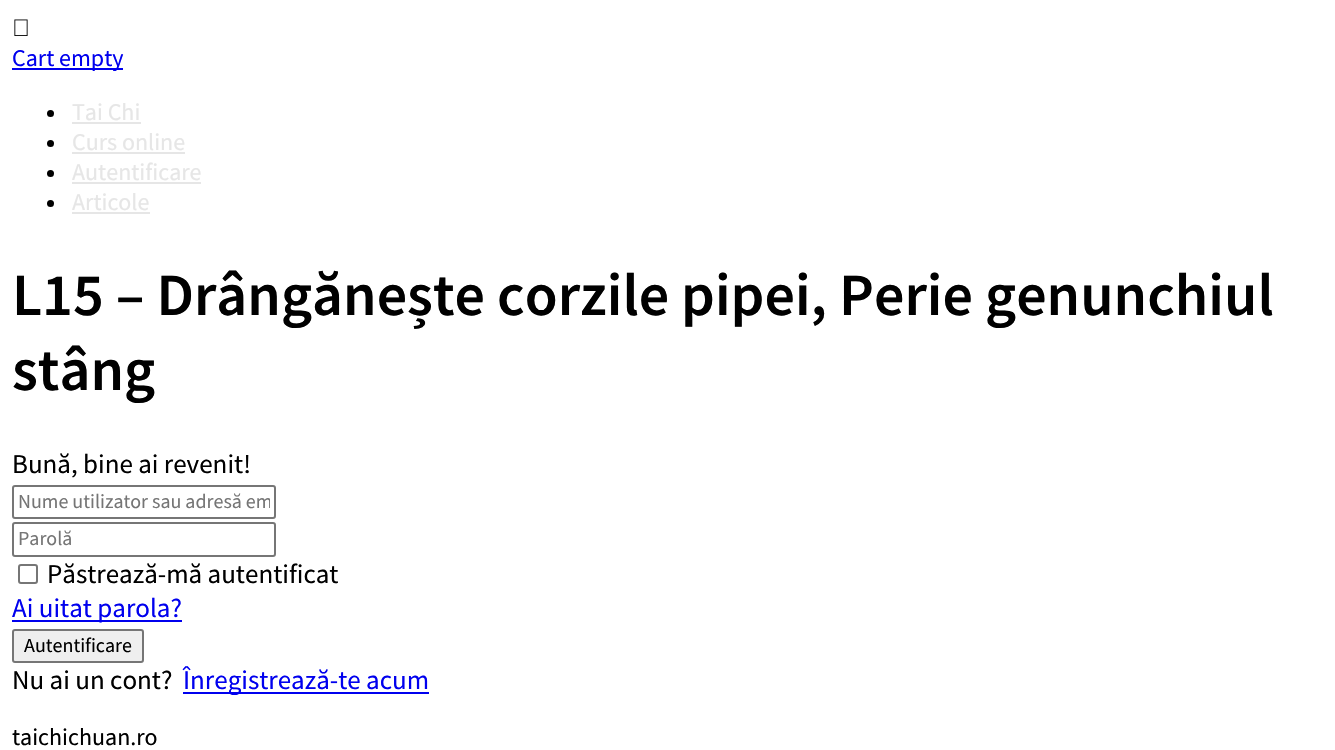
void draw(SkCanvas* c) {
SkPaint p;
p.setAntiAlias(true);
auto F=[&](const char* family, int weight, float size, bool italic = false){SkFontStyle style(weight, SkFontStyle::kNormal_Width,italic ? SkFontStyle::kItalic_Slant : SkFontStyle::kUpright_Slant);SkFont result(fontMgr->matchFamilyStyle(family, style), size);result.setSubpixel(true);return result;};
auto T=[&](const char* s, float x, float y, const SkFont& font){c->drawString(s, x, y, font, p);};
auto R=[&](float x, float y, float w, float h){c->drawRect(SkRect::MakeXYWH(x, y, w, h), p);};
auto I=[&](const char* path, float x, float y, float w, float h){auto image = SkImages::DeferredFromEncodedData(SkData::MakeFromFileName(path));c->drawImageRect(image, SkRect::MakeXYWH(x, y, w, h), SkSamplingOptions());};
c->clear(0xffffffff);
I("1.png",14,19,14,17);
p.setColor(0xff0000ee);
R(12,68,111,2);
auto f1 = F("Source Sans Pro",400,24);
T("Cart empty",12,66,f1);
p.setColor(0xff000000);
c->drawCircle(50.5,113.5,3.5,p);
p.setColor(0xffe6e6e6);
T("Tai Chi",72,120,f1);
R(72,122,69,2);
p.setColor(0xff000000);
c->drawCircle(50.5,143.5,3.5,p);
p.setColor(0xffe6e6e6);
T("Curs online",72,150,f1);
R(72,152,113,2);
p.setColor(0xff000000);
c->drawCircle(50.5,173.5,3.5,p);
p.setColor(0xffe6e6e6);
T("Autentificare",72,180,f1);
R(72,182,129,2);
p.setColor(0xff000000);
c->drawCircle(50.5,203.5,3.5,p);
p.setColor(0xffe6e6e6);
T("Articole",72,210,f1);
R(72,212,78,2);
auto f2 = F("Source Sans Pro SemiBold",600,60);
p.setColor(0xff000000);
T("L15 – Drângănește corzile pipei, Perie genunchiul",12,315,f2);
T("stâng",12,390,f2);
auto f3 = F("Source Sans Pro",400,27);
T("Bună, bine ai revenit!",12,473,f3);
p.setStroke(true);
p.setStrokeWidth(2);
p.setColor(0xff767676);
c->drawRoundRect(SkRect::MakeXYWH(13,486,262,32),2,2,p);
c->save();
c->clipRect(SkRect::MakeXYWH(18,489,252,26));
auto f4 = F("Source Sans Pro",400,20);
p.setStroke(false);
p.setColor(0xff757575);
T("Nume utilizator sau adresă em",18,508,f4);
c->restore();
p.setStroke(true);
p.setColor(0xff767676);
c->drawRoundRect(SkRect::MakeXYWH(13,523,262,33),2,2,p);
p.setStroke(false);
p.setColor(0xff757575);
T("Parolă",18,545,f4);
p.setStroke(true);
p.setColor(0xff767676);
c->drawRoundRect(SkRect::MakeXYWH(19,565,18,18),2,2,p);
p.setStroke(false);
p.setColor(0xff000000);
T("Păstrează-mă autentificat",47,583,f3);
p.setColor(0xff0000ee);
R(12,620,170,2);
T("Ai uitat parola?",12,617,f3);
p.setColor(0xffefefef);
c->drawRoundRect(SkRect::MakeXYWH(13,630,130,32),2,2,p);
p.setStroke(true);
p.setColor(0xff767676);
c->drawRoundRect(SkRect::MakeXYWH(13,630,130,32),2,2,p);
p.setStroke(false);
p.setColor(0xff000000);
T("Autentificare",24,652,f4);
T("Nu ai un cont?",12,689,f3);
p.setColor(0xff0000ee);
R(183,692,246,2);
T("Înregistrează-te acum",183,689,f3);
p.setColor(0xff000000);
T("taichichuan.ro",12,745,f1);
}
